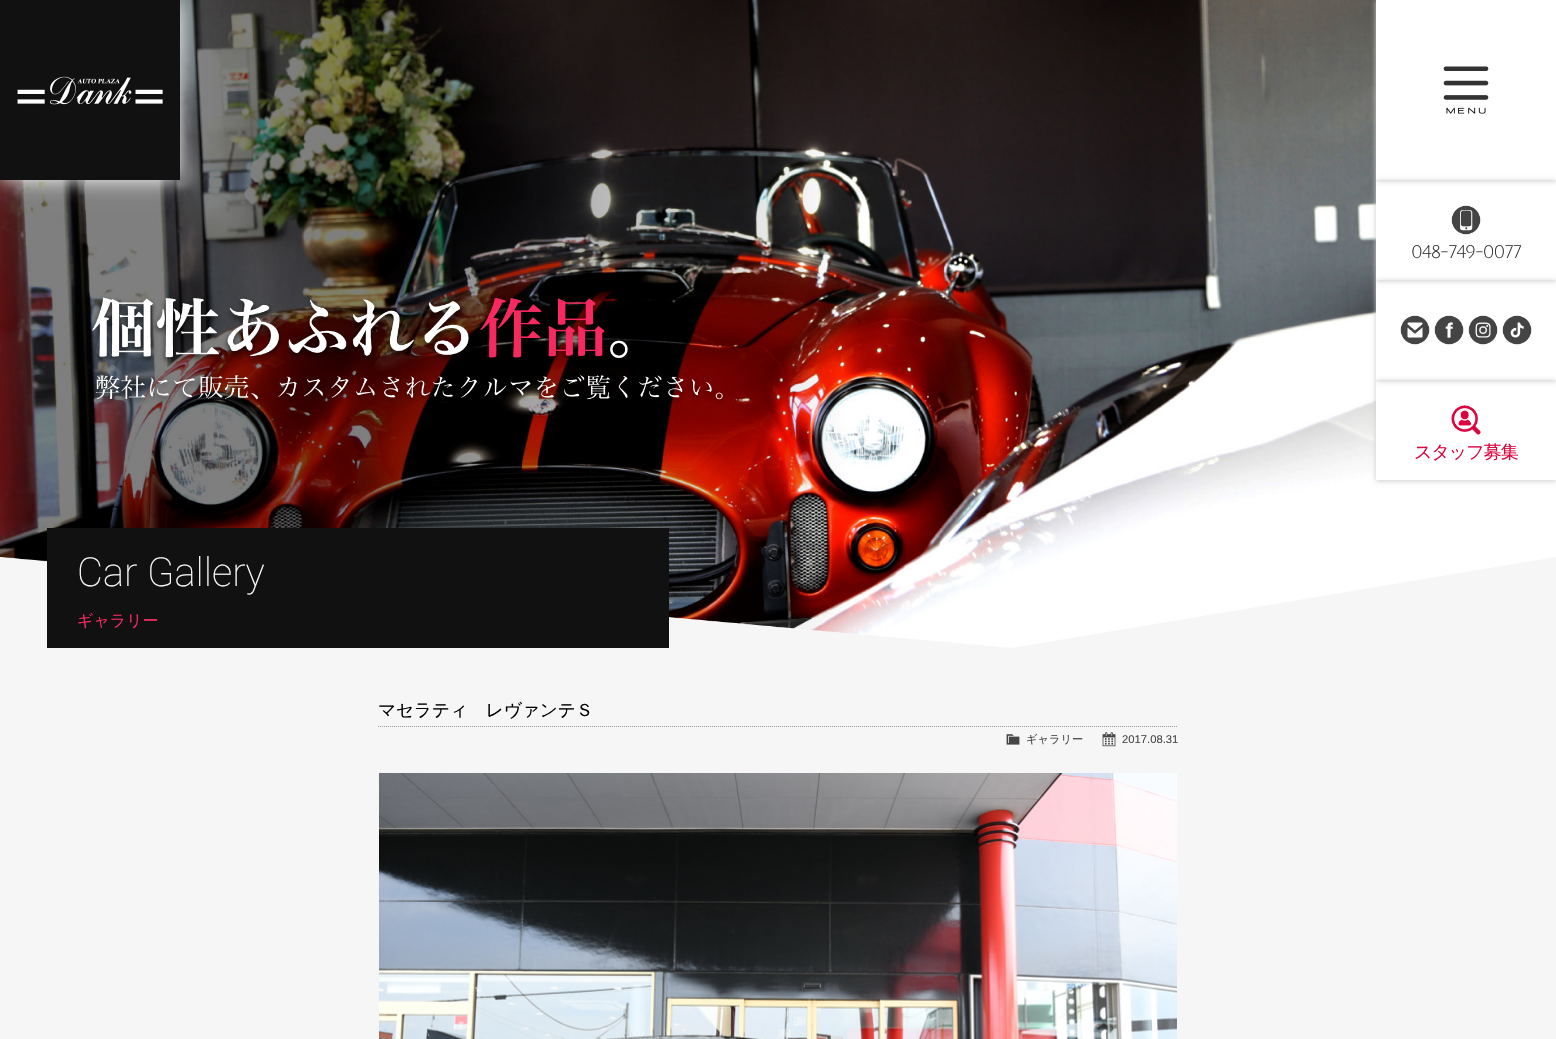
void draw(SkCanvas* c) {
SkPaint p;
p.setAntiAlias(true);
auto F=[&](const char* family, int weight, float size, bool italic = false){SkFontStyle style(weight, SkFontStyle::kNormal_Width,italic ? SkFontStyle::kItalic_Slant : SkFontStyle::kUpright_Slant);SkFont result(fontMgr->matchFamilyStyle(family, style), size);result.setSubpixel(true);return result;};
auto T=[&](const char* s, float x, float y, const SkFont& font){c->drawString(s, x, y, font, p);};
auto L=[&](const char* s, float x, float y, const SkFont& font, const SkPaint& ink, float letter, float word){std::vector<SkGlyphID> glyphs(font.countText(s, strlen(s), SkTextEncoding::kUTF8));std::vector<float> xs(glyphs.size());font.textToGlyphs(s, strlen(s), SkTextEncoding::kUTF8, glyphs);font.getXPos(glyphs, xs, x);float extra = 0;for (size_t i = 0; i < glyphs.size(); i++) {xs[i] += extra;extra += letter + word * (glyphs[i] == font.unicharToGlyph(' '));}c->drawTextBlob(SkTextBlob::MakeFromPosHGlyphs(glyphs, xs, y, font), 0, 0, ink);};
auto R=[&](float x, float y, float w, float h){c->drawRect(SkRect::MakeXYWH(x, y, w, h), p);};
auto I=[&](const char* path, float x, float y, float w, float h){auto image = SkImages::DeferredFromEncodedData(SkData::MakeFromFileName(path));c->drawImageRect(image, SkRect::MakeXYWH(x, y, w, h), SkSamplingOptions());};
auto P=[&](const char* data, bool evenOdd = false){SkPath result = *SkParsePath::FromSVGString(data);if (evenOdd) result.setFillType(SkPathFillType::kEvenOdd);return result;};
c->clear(0xfff6f6f6);
I("8.png",0,0,1556,648);
p.setColor(0xffcccccc);
p.setMaskFilter(SkMaskFilter::MakeBlur(kNormal_SkBlurStyle, 2.5));
c->drawRect(SkRect::MakeXYWH(1376,1,180,480),p);
p.setMaskFilter(nullptr);
p.setColor(0xffffffff);
R(1376,0,180,480);
c->save();
c->clipRect(SkRect::MakeXYWH(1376,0,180,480));
c->clipRect(SkRect::MakeXYWH(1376,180,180,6));
p.setColor(0xffcccccc);
p.setMaskFilter(SkMaskFilter::MakeBlur(kNormal_SkBlurStyle, 2.5));
c->drawRect(SkRect::MakeXYWH(1376,1,180,180),p);
p.setMaskFilter(nullptr);
c->restore();
I("1.png",1443,66,46,48);
c->save();
c->clipRect(SkRect::MakeXYWH(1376,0,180,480));
c->clipPath(P("M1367 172h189v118h-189zm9 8h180v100h-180z",true),true);
p.setMaskFilter(SkMaskFilter::MakeBlur(kNormal_SkBlurStyle, 2.5));
c->drawRect(SkRect::MakeXYWH(1376,181,180,100),p);
p.setMaskFilter(nullptr);
c->restore();
I("2.png",1451,205,30,30);
auto f1 = F("Julius Sans One",400,18);
p.setColor(0xff333333);
L("048-749-0077",1411,258,f1,p,-1,0);
c->save();
c->clipRect(SkRect::MakeXYWH(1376,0,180,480));
c->clipPath(P("M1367 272h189v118h-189zm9 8h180v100h-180z",true),true);
p.setColor(0xffcccccc);
p.setMaskFilter(SkMaskFilter::MakeBlur(kNormal_SkBlurStyle, 2.5));
c->drawRect(SkRect::MakeXYWH(1376,281,180,100),p);
p.setMaskFilter(nullptr);
c->restore();
I("3.png",1400,315,30,30);
I("4.png",1434,315,30,30);
I("5.png",1468,315,30,30);
I("6.png",1502,315,30,30);
c->save();
c->clipRect(SkRect::MakeXYWH(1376,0,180,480));
c->clipRect(SkRect::MakeXYWH(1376,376,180,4));
p.setMaskFilter(SkMaskFilter::MakeBlur(kNormal_SkBlurStyle, 2.5));
c->drawRect(SkRect::MakeXYWH(1376,381,180,100),p);
p.setMaskFilter(nullptr);
c->restore();
I("7.png",1451,405,30,30);
auto f2 = F("WenQuanYi Zen Hei",500,18);
p.setColor(0xffdd053e);
L("スタッフ募集",1414,458,f2,p,-1,0);
p.setColor(0xffffffff);
p.setMaskFilter(SkMaskFilter::MakeBlur(kNormal_SkBlurStyle, 10));
c->drawRect(SkRect::MakeXYWH(0,0,180,180),p);
p.setMaskFilter(nullptr);
p.setColor(0xff111111);
R(0,0,180,180);
I("9.png",17,76,146,29);
I("10.png",91,297,634,108);
I("11.png",0,557,1556,91);
R(47,528,622,120);
auto f3 = F("Roboto",100,40);
p.setColor(0xffffffff);
T("Car Gallery",77,586,f3);
auto f4 = F("WenQuanYi Zen Hei",500,16);
p.setColor(0xfff82960);
T("ギャラリー",77,626,f4);
auto f5 = F("WenQuanYi Zen Hei",500,17.6);
p.setColor(0xff000000);
T("マセラティ　レヴァンテＳ",378,716,f5);
p.setStroke(true);
p.setStrokeWidth(1);
p.setColor(0xff999999);
p.setPathEffect(SkDashPathEffect::Make({{1,1}}, 0));
c->drawPath(P("M378 726.5h800"),p);
p.setPathEffect(nullptr);
I("12.png",1006,734,14,11);
auto f6 = F("WenQuanYi Zen Hei",500,11.25);
p.setStroke(false);
p.setColor(0xff454545);
T("ギャラリー",1026,743,f6);
I("13.png",1102,732,14,15);
auto f7 = F("Liberation Sans",400,11.25);
T("2017.08.31",1122,743,f7);
I("14.png",379,773,798,266);
}
